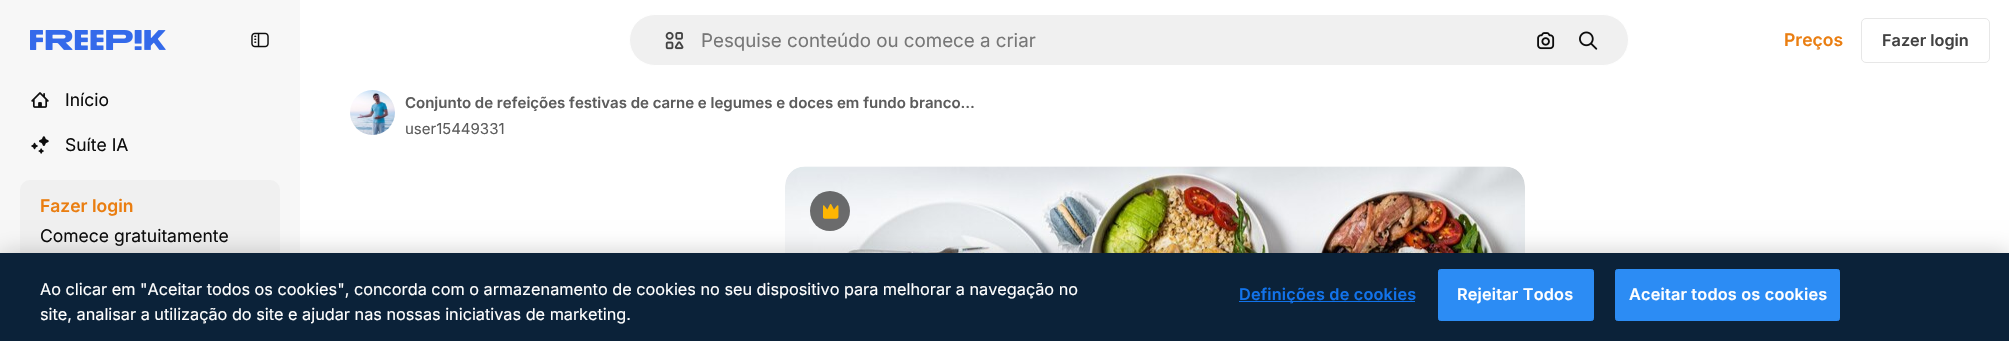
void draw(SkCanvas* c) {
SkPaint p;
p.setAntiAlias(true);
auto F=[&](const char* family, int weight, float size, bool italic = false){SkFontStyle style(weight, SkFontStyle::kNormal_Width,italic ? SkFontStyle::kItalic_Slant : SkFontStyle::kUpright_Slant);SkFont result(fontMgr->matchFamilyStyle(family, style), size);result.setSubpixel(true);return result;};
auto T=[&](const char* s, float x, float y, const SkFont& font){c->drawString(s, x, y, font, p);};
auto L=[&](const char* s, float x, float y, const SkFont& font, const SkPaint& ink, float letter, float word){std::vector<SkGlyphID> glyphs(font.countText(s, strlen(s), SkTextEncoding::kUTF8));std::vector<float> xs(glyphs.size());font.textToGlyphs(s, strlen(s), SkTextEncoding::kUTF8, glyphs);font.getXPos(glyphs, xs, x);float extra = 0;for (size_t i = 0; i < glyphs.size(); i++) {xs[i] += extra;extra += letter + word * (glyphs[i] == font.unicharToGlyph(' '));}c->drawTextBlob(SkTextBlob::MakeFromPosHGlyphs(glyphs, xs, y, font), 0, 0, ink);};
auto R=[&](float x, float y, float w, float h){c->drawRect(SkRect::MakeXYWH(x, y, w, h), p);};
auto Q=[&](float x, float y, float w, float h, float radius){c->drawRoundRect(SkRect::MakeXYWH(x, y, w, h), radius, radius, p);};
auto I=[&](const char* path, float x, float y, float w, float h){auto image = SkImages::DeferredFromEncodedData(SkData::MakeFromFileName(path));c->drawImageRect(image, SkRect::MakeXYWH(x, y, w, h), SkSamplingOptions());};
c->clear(0xffffffff);
p.setColor(0xfff7f7f7);
R(0,0,300,253);
I("1.png",30,30,136,20);
I("2.png",251,32,18,16);
I("3.png",31,92,18,16);
auto f1 = F("Inter",400,17.5);
p.setColor(0xff0d0d0d);
T("Início",65,106,f1);
I("4.png",31,136,18,18);
T("Suíte IA",65,151,f1);
p.setColor(0xfff0f0f0);
Q(20,180,260,81,10);
auto f2 = F("Inter",600,17.5);
p.setColor(0xffea7e11);
T("Fazer login",40,212,f2);
p.setColor(0xff0d0d0d);
T("Comece gratuitamente",40,242,f1);
p.setColor(0xfff0f0f0);
c->drawRoundRect(SkRect::MakeXYWH(629.5,14.5,999,51),25.5,25.5,p);
p.setStroke(true);
p.setStrokeWidth(1);
p.setColor(0xffffffff);
c->drawRoundRect(SkRect::MakeXYWH(629.5,14.5,999,51),25.5,25.5,p);
I("5.png",665,31,19,19);
auto f3 = F("Inter",400,18.75);
p.setStroke(false);
p.setColor(0xff777777);
T("Pesquise conteúdo ou comece a criar",701,47,f3);
I("6.png",1537,32,18,18);
I("7.png",1579,31,19,19);
p.setColor(0xffea7e11);
T("Preços",1784,46,f2);
p.setStroke(true);
p.setColor(0xffe7e7e7);
c->drawRoundRect(SkRect::MakeXYWH(1861.5,18.5,128,44),4.5,4.5,p);
auto f4 = F("Inter",600,16.25);
p.setStroke(false);
p.setColor(0xff424242);
T("Fazer login",1882,46,f4);
I("8.png",350,90,45,45);
auto f5 = F("Inter",600,15);
p.setColor(0xff5c5c5c);
T("Conjunto de refeições festivas de carne e legumes e doces em fundo branco…",405,108,f5);
auto f6 = F("Inter",400,15);
T("user15449331",405,134,f6);
I("9.png",785,166,740,87);
p.setColor(0x990d0d0d);
c->drawCircle(830,211,20,p);
I("10.png",823,204,16,15);
p.setColor(0x33000000);
p.setMaskFilter(SkMaskFilter::MakeBlur(kNormal_SkBlurStyle, 11));
c->drawRect(SkRect::MakeXYWH(0,253,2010,88),p);
p.setMaskFilter(nullptr);
p.setColor(0xff0b2239);
R(0,253,2009,88);
auto f7 = F("Inter",400,16.25);
p.setColor(0xffffffff);
T("Ao clicar em \"Aceitar todos os cookies\", concorda com o armazenamento de cookies no seu dispositivo para melhorar a navegação no",40,295,f7);
T("site, analisar a utilização do site e ajudar nas nossas iniciativas de marketing.",40,320,f7);
p.setColor(0xff1273eb);
R(1239,301,176,1);
L("Definições de cookies",1239,300,f4,p,.2,0);
p.setColor(0xff2c8cf4);
c->drawRoundRect(SkRect::MakeXYWH(1438.5,269.5,155,51),2,2,p);
p.setStroke(true);
c->drawRoundRect(SkRect::MakeXYWH(1438.5,269.5,155,51),2,2,p);
p.setStroke(false);
p.setColor(0xffffffff);
L("Rejeitar Todos",1457,300,f4,p,.2,0);
p.setColor(0xff2c8cf4);
c->drawRoundRect(SkRect::MakeXYWH(1615.5,269.5,224,51),2,2,p);
p.setStroke(true);
c->drawRoundRect(SkRect::MakeXYWH(1615.5,269.5,224,51),2,2,p);
p.setStroke(false);
p.setColor(0xffffffff);
L("Aceitar todos os cookies",1629,300,f4,p,.2,0);
}
